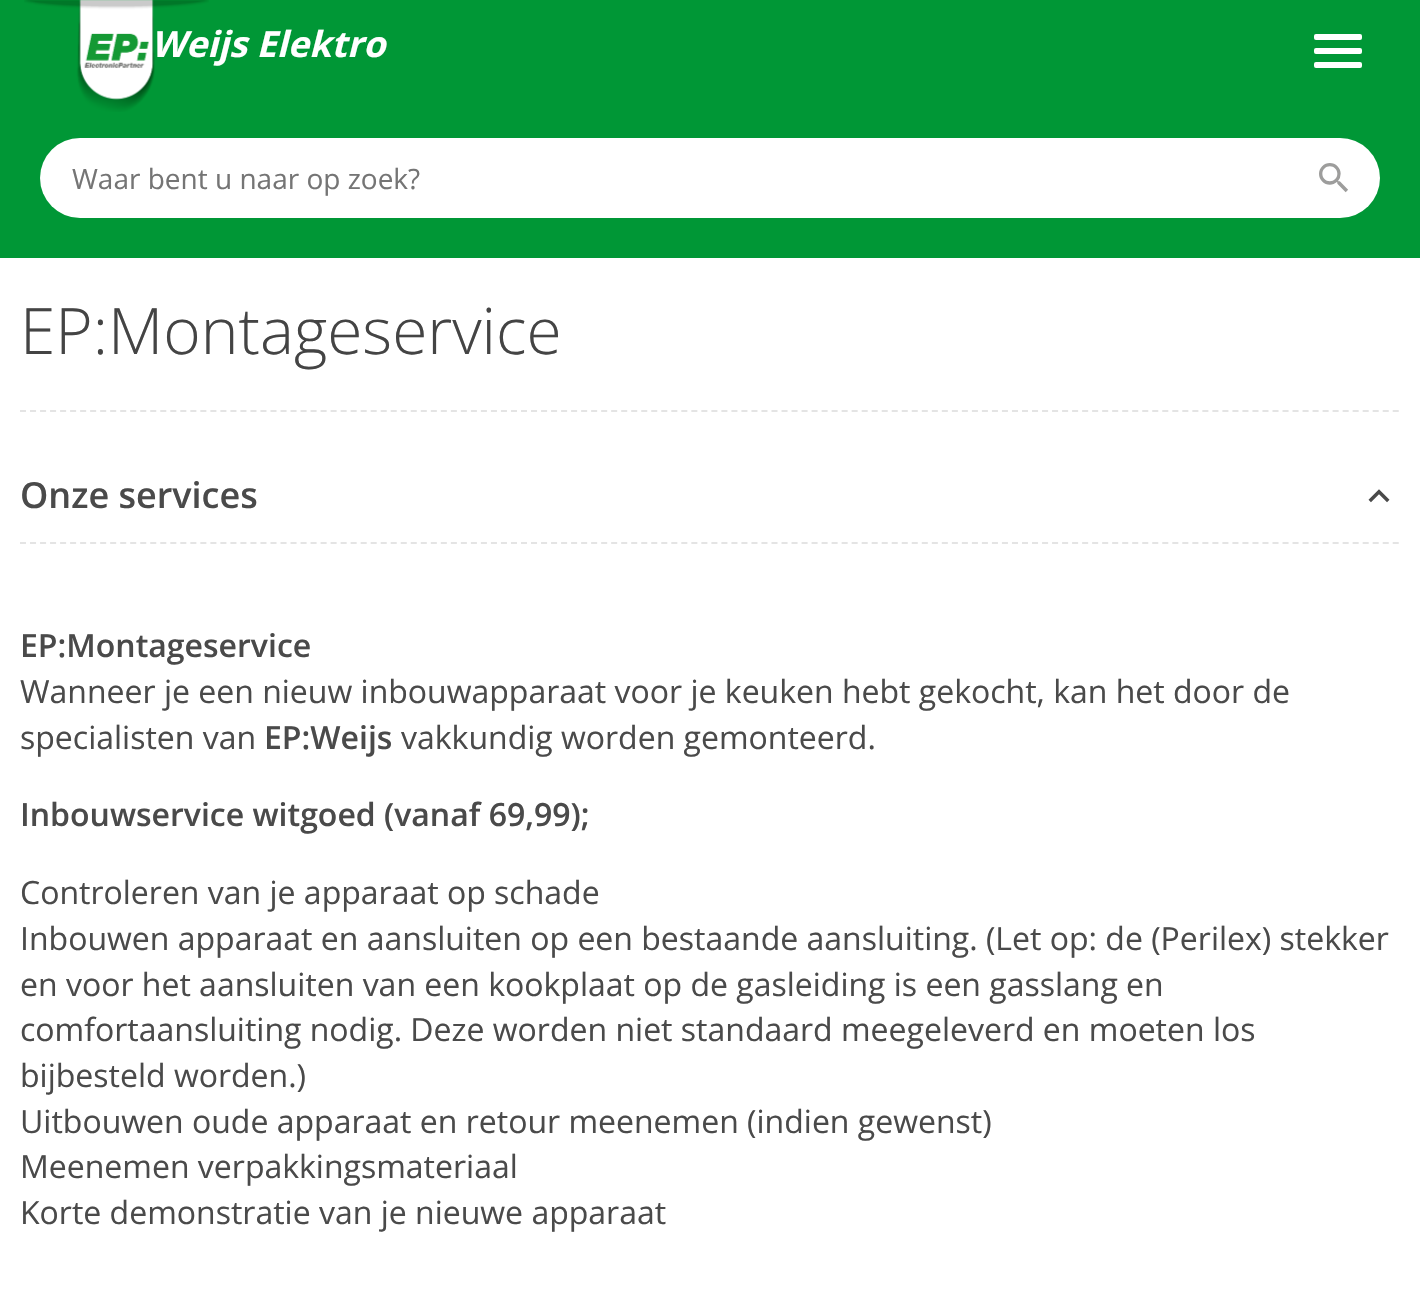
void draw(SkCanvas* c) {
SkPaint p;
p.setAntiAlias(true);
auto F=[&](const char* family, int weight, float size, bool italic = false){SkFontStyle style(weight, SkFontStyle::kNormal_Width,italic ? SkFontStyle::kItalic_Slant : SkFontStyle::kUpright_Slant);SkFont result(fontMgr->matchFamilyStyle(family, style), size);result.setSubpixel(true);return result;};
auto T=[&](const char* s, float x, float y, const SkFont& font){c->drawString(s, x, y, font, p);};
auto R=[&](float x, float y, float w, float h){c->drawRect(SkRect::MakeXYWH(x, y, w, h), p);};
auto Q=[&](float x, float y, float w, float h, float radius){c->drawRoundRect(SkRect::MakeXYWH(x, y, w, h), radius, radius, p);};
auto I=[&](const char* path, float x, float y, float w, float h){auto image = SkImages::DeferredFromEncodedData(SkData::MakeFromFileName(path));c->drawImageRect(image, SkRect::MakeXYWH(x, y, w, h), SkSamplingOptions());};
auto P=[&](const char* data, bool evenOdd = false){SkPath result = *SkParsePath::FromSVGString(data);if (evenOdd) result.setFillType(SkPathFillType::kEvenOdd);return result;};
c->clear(0xffffffff);
p.setColor(0xff009736);
R(0,0,1420,258);
I("1.png",24,0,185,112);
auto f1 = F("Open Sans",700,36,true);
p.setColor(0xffffffff);
T("Weijs Elektro",151,57,f1);
Q(1314,34,48,6,2);
Q(1314,48,48,6,2);
Q(1314,62,48,6,2);
Q(40,138,1340,80,40);
auto f2 = F("Open Sans",400,28);
p.setColor(0xff757575);
T("Waar bent u naar op zoek?",72,189,f2);
I("2.png",1319,163,29,30);
auto f3 = F("Open Sans",300,64);
p.setColor(0xff444444);
T("EP:Montageservice",20,354,f3);
p.setStroke(true);
p.setStrokeWidth(2);
p.setColor(0xffe4e4e4);
p.setPathEffect(SkDashPathEffect::Make({{6,4.02f}}, 0));
c->drawPath(P("M20 411h1380"),p);
p.setPathEffect(nullptr);
auto f4 = F("Open Sans",600,36);
p.setStroke(false);
p.setColor(0xff4a4a4a);
T("Onze services",20,508,f4);
I("3.png",1368,489,22,14);
p.setStroke(true);
p.setColor(0xffe4e4e4);
p.setPathEffect(SkDashPathEffect::Make({{6,4.02f}}, 0));
c->drawPath(P("M20 543h1380"),p);
p.setPathEffect(nullptr);
auto f5 = F("Open Sans",600,32);
p.setStroke(false);
p.setColor(0xff4a4a4a);
T("EP:Montageservice",20,657,f5);
auto f6 = F("Open Sans",400,32);
T("Wanneer je een nieuw inbouwapparaat voor je keuken hebt gekocht, kan het door de",20,703,f6);
T("specialisten van",20,749,f6);
T("EP:Weijs",264,749,f5);
T("vakkundig worden gemonteerd.",401,749,f6);
T("Inbouwservice witgoed (vanaf 69,99);",20,826,f5);
T("Controleren van je apparaat op schade",20,904,f6);
T("Inbouwen apparaat en aansluiten op een bestaande aansluiting. (Let op: de (Perilex) stekker",20,950,f6);
T("en voor het aansluiten van een kookplaat op de gasleiding is een gasslang en",20,996,f6);
T("comfortaansluiting nodig. Deze worden niet standaard meegeleverd en moeten los",20,1041,f6);
T("bijbesteld worden.)",20,1087,f6);
T("Uitbouwen oude apparaat en retour meenemen (indien gewenst)",20,1133,f6);
T("Meenemen verpakkingsmateriaal",20,1178,f6);
T("Korte demonstratie van je nieuwe apparaat",20,1224,f6);
}
